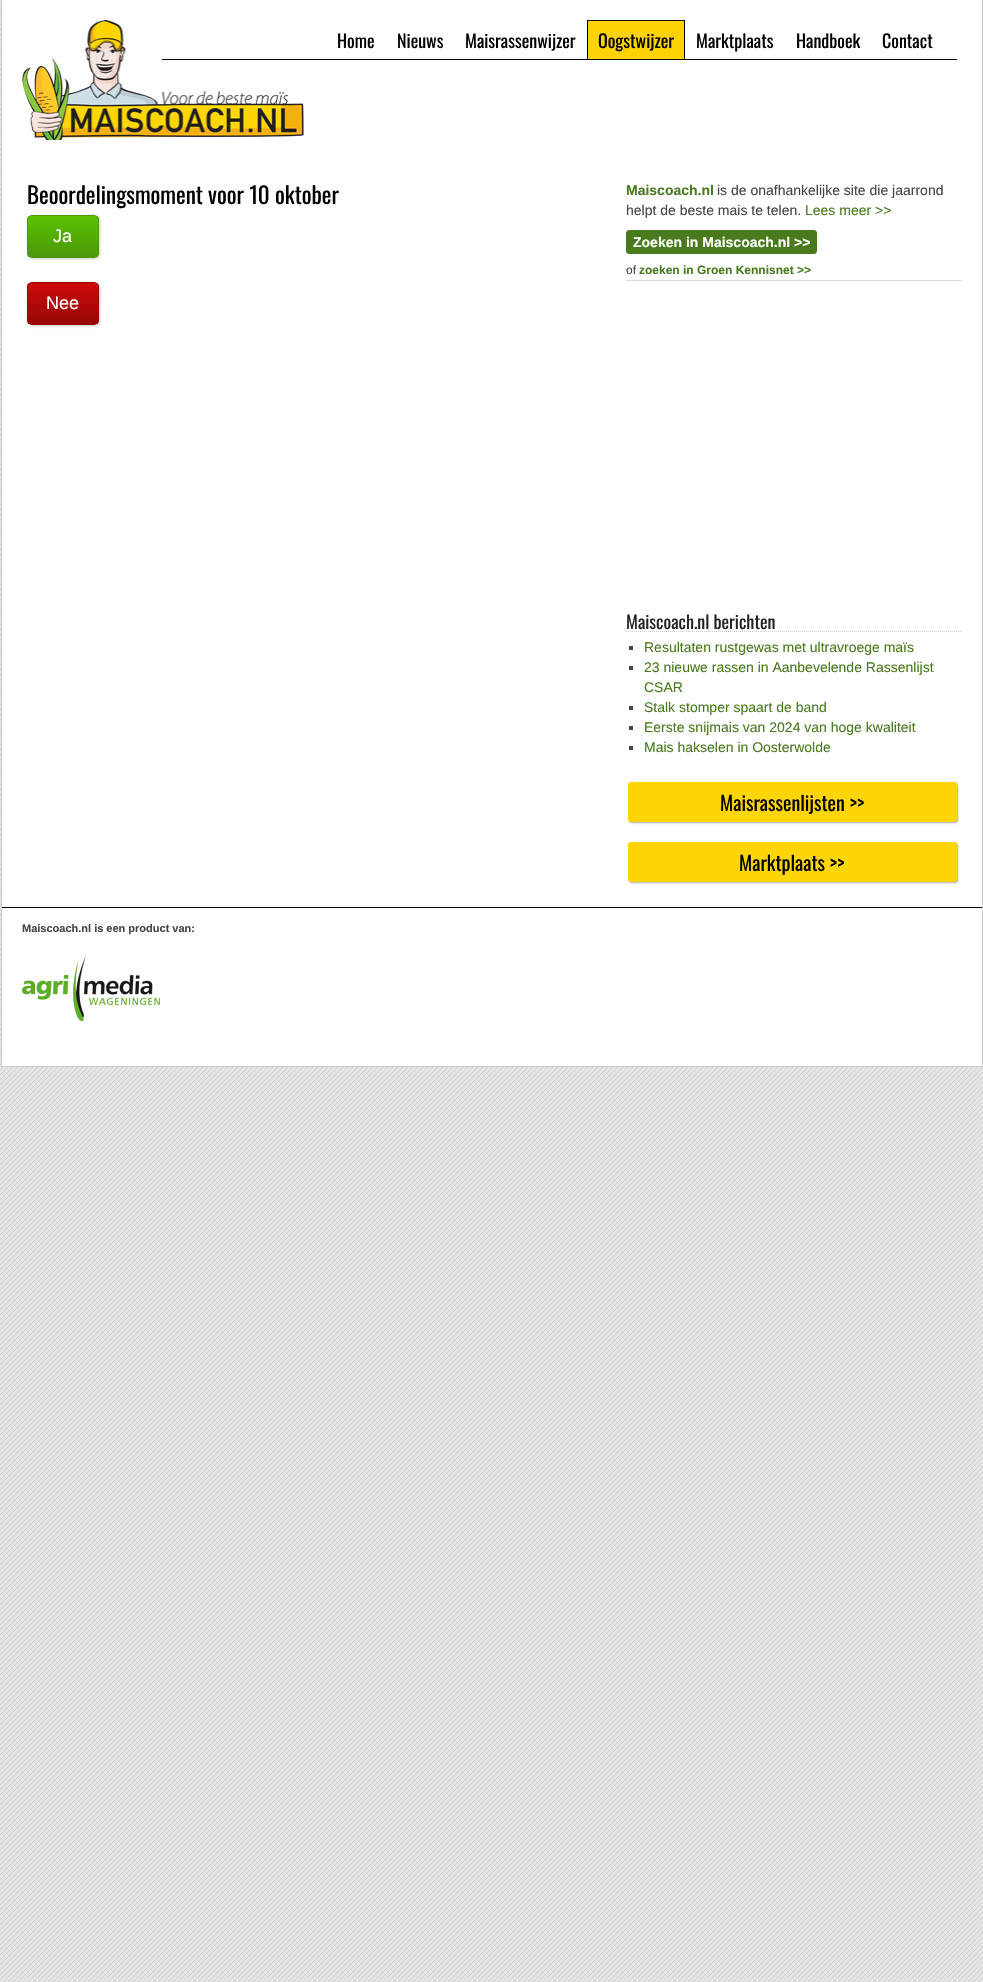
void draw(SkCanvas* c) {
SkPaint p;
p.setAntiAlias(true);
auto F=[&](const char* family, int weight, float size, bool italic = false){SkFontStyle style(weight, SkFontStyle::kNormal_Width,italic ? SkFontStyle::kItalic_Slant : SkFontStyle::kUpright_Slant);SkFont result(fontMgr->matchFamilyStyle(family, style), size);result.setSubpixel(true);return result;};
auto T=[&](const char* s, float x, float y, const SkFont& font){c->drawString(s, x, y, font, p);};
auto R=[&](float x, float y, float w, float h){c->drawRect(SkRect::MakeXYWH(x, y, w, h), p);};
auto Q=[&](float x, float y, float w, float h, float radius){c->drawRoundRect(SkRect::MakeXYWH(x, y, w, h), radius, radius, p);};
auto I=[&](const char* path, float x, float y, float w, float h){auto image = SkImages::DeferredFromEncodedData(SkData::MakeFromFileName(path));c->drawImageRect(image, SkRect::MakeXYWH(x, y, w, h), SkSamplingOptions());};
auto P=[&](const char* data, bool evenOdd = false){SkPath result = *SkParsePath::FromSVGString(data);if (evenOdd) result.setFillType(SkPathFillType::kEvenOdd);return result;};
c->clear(0xffffffff);
I("1.png",0,0,983,1982);
p.setColor(0xffffffff);
R(2,0,980,1066);
p.setColor(0xffcccccc);
R(982,0,1,1067);
R(1,1066,982,1);
R(1,0,1,1067);
I("2.png",22,20,282,120);
p.setColor(0xff000000);
R(162,59,795,1);
auto f1 = F("Oswald",400,18);
T("Home",337,48,f1);
T("Nieuws",397,48,f1);
T("Maisrassenwijzer",465,48,f1);
p.setColor(0xfffed204);
R(588,21,96,38);
p.setColor(0xff000000);
R(587,20,98,1);
R(684,20,1,39);
R(587,20,1,39);
T("Oogstwijzer",598,48,f1);
T("Marktplaats",696,48,f1);
T("Handboek",796,48,f1);
T("Contact",882,48,f1);
auto f2 = F("Oswald",400,23);
T("Beoordelingsmoment voor 10 oktober",27,204,f2);
p.setColor(0xffcccccc);
p.setMaskFilter(SkMaskFilter::MakeBlur(kNormal_SkBlurStyle, 1.5));
c->drawRoundRect(SkRect::MakeXYWH(28,216,72,43),5,5,p);
p.setMaskFilter(nullptr);
c->save();
c->clipPath(P("M32 215h62c3 0 5 2 5 5v33c0 3-2 5-5 5h-62c-3 0-5-2-5-5v-33c0-3 2-5 5-5z"),true);
{
const SkColor colors[] = {0xff5bc101,0xff4c9907};
const float stops[] = {0,1};
const SkPoint ends[] = {{63,216}, {63,257}};
p.setShader(SkGradientShader::MakeLinear(ends, colors, stops, 2, SkTileMode::kClamp));
p.setAlpha(255);
}
R(27,216,72,41);
c->restore();
p.setStroke(true);
p.setStrokeWidth(1);
p.setShader(nullptr);
p.setColor(0xff4c9907);
c->drawRoundRect(SkRect::MakeXYWH(27.5,215.5,71,42),4.5,4.5,p);
auto f3 = F("Liberation Sans",400,18);
p.setStroke(false);
p.setColor(0xffffffff);
T("Ja",53,242,f3);
p.setColor(0xffcccccc);
p.setMaskFilter(SkMaskFilter::MakeBlur(kNormal_SkBlurStyle, 1.5));
c->drawRoundRect(SkRect::MakeXYWH(28,283,72,43),5,5,p);
p.setMaskFilter(nullptr);
c->save();
c->clipPath(P("M32 282h62c3 0 5 2 5 5v33c0 3-2 5-5 5h-62c-3 0-5-2-5-5v-33c0-3 2-5 5-5z"),true);
{
const SkColor colors[] = {0xffcd0a0a,0xff990707};
const float stops[] = {0,1};
const SkPoint ends[] = {{63,283}, {63,324}};
p.setShader(SkGradientShader::MakeLinear(ends, colors, stops, 2, SkTileMode::kClamp));
p.setAlpha(255);
}
R(27,283,72,41);
c->restore();
p.setStroke(true);
p.setShader(nullptr);
p.setColor(0xff990707);
c->drawRoundRect(SkRect::MakeXYWH(27.5,282.5,71,42),4.5,4.5,p);
p.setStroke(false);
p.setColor(0xffffffff);
T("Nee",46,309,f3);
auto f4 = F("Liberation Sans",700,14);
p.setColor(0xff497a1e);
T("Maiscoach.nl",626,195,f4);
auto f5 = F("Liberation Sans",400,14);
p.setColor(0xff444444);
T("is de onafhankelijke site die jaarrond",717,195,f5);
T("helpt de beste mais te telen.",626,215,f5);
p.setColor(0xff497a1e);
T("Lees meer >>",805,215,f5);
c->drawRoundRect(SkRect::MakeXYWH(626.5,230.5,190,23),2.5,2.5,p);
p.setStroke(true);
c->drawRoundRect(SkRect::MakeXYWH(626.5,230.5,190,23),2.5,2.5,p);
p.setStroke(false);
p.setColor(0xffffffff);
T("Zoeken in Maiscoach.nl >>",633,247,f4);
p.setColor(0xffdddddd);
R(626,280,336,1);
auto f6 = F("Liberation Sans",400,12);
p.setColor(0xff444444);
T("of",626,274,f6);
auto f7 = F("Liberation Sans",700,12);
p.setColor(0xff497a1e);
T("zoeken in Groen Kennisnet >>",639,274,f7);
p.setStroke(true);
p.setColor(0xffcccccc);
p.setPathEffect(SkDashPathEffect::Make({{1,1}}, 0));
c->drawPath(P("M626 631.5h336"),p);
p.setPathEffect(nullptr);
p.setStroke(false);
p.setColor(0xff222222);
T("Maiscoach.nl berichten",626,629,f1);
p.setColor(0xff444444);
R(629,646,4,4);
p.setColor(0xff497a1e);
T("Resultaten rustgewas met ultravroege maïs",644,652,f5);
p.setColor(0xff444444);
R(629,666,4,4);
p.setColor(0xff497a1e);
T("23 nieuwe rassen in Aanbevelende Rassenlijst",644,672,f5);
T("CSAR",644,692,f5);
p.setColor(0xff444444);
R(629,706,4,4);
p.setColor(0xff497a1e);
T("Stalk stomper spaart de band",644,712,f5);
p.setColor(0xff444444);
R(629,726,4,4);
p.setColor(0xff497a1e);
T("Eerste snijmais van 2024 van hoge kwaliteit",644,732,f5);
p.setColor(0xff444444);
R(629,746,4,4);
p.setColor(0xff497a1e);
T("Mais hakselen in Oosterwolde",644,752,f5);
p.setColor(0xffaaaaaa);
p.setMaskFilter(SkMaskFilter::MakeBlur(kNormal_SkBlurStyle, 1));
c->drawRoundRect(SkRect::MakeXYWH(629,783,329,40),3,3,p);
p.setMaskFilter(nullptr);
p.setColor(0xffffd503);
Q(628,782,329,40,3);
auto f8 = F("Oswald",400,20);
p.setColor(0xff000000);
T("Maisrassenlijsten >>",720,811,f8);
p.setColor(0xffaaaaaa);
p.setMaskFilter(SkMaskFilter::MakeBlur(kNormal_SkBlurStyle, 1));
c->drawRoundRect(SkRect::MakeXYWH(629,843,329,40),3,3,p);
p.setMaskFilter(nullptr);
p.setColor(0xffffd503);
Q(628,842,329,40,3);
p.setColor(0xff000000);
T("Marktplaats >>",739,871,f8);
R(2,907,980,1);
auto f9 = F("Liberation Sans",700,11);
p.setColor(0xff444444);
T("Maiscoach.nl is een product van:",22,932,f9);
I("3.png",22,956,138,65);
}
